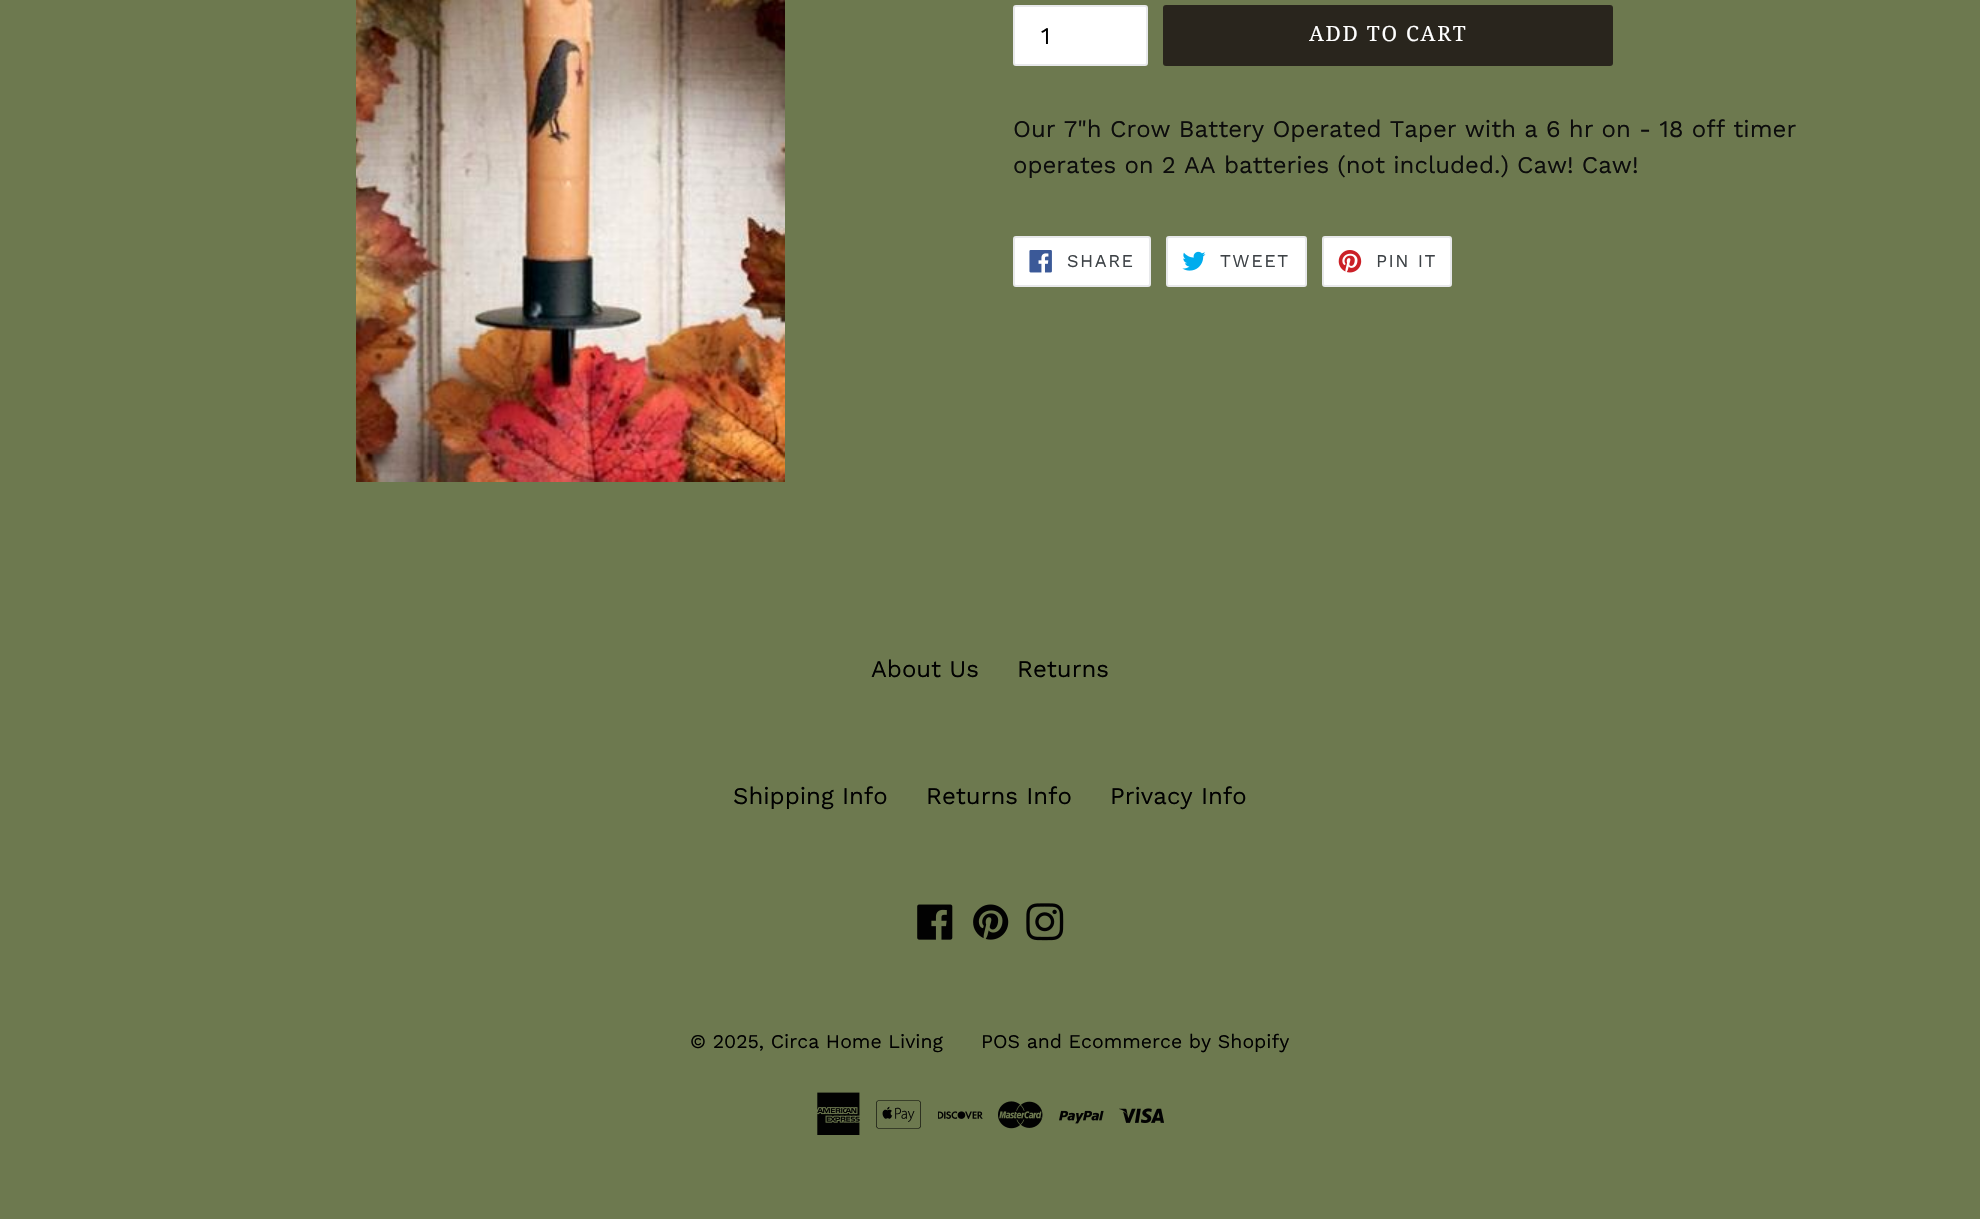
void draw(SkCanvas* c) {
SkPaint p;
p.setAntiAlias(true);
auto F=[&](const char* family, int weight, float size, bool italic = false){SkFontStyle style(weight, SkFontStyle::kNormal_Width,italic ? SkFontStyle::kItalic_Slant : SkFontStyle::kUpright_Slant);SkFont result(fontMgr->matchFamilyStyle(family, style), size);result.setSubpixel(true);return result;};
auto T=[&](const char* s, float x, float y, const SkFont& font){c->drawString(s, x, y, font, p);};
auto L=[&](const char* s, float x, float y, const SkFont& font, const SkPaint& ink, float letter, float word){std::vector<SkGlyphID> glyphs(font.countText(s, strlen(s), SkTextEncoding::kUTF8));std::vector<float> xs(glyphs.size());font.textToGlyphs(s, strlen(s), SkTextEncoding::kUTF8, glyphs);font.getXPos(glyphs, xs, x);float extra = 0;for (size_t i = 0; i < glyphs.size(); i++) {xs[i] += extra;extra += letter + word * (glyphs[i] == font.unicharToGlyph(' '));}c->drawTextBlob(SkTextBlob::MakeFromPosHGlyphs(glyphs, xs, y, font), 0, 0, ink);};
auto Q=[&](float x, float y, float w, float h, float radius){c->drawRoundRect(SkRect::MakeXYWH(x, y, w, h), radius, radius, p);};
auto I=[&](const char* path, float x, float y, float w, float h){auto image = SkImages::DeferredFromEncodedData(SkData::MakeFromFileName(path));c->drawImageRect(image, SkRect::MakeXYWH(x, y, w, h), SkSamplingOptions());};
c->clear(0xff6d794f);
I("1.png",356,0,429,482);
p.setColor(0xffffffff);
c->drawRoundRect(SkRect::MakeXYWH(1014,6,133,59),2,2,p);
p.setStroke(true);
p.setStrokeWidth(2);
p.setColor(0xffe8e9eb);
c->drawRoundRect(SkRect::MakeXYWH(1014,6,133,59),2,2,p);
auto f1 = F("Work Sans",400,24);
p.setStroke(false);
p.setColor(0xff000000);
T("1",1041,44,f1);
p.setColor(0xff29251d);
Q(1163,5,450,61,3);
auto f2 = F("Droid Serif",400,21);
p.setColor(0xffffffff);
L("ADD TO CART",1309,41,f2,p,1.75,0);
p.setColor(0xff0c0c0c);
T("Our 7\"h Crow Battery Operated Taper with a 6 hr on - 18 off timer",1013,137,f1);
T("operates on 2 AA batteries (not included.) Caw! Caw!",1013,173,f1);
p.setColor(0xffffffff);
c->drawRoundRect(SkRect::MakeXYWH(1014,237,136,49),2,2,p);
p.setStroke(true);
p.setColor(0xffe8e9eb);
c->drawRoundRect(SkRect::MakeXYWH(1014,237,136,49),2,2,p);
I("2.png",1029,250,23,23);
auto f3 = F("Work Sans",400,18);
p.setStroke(false);
p.setColor(0xff3d4246);
L("SHARE",1067,267,f3,p,1.5,0);
p.setColor(0xffffffff);
c->drawRoundRect(SkRect::MakeXYWH(1167,237,139,49),2,2,p);
p.setStroke(true);
p.setColor(0xffe8e9eb);
c->drawRoundRect(SkRect::MakeXYWH(1167,237,139,49),2,2,p);
I("3.png",1182,251,24,20);
p.setStroke(false);
p.setColor(0xff3d4246);
L("TWEET",1220,267,f3,p,1.5,0);
p.setColor(0xffffffff);
c->drawRoundRect(SkRect::MakeXYWH(1323,237,128,49),2,2,p);
p.setStroke(true);
p.setColor(0xffe8e9eb);
c->drawRoundRect(SkRect::MakeXYWH(1323,237,128,49),2,2,p);
I("4.png",1338,250,24,23);
p.setStroke(false);
p.setColor(0xff3d4246);
L("PIN IT",1376,267,f3,p,1.5,0);
p.setColor(0xff000000);
T("About Us",871,677,f1);
T("Returns",1017,677,f1);
T("Shipping Info",733,804,f1);
T("Returns Info",926,804,f1);
T("Privacy Info",1110,804,f1);
I("5.png",917,904,36,36);
I("6.png",973,904,36,36);
I("7.png",1026,903,38,38);
auto f4 = F("Work Sans",400,19.5);
T("© 2025, Circa Home Living",690,1048,f4);
T("POS and Ecommerce by Shopify",981,1048,f4);
I("8.png",817,1092,43,43);
I("9.png",876,1100,45,29);
I("10.png",938,1111,45,8);
I("11.png",998,1101,45,28);
I("12.png",1059,1110,45,14);
I("13.png",1119,1108,45,15);
}
